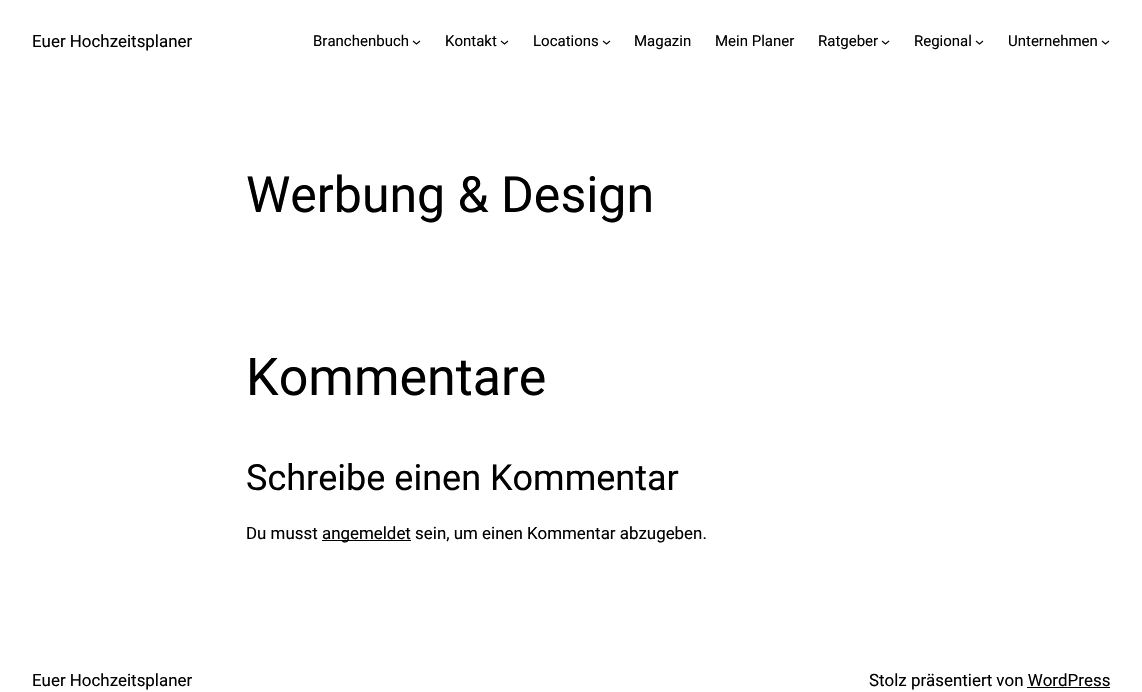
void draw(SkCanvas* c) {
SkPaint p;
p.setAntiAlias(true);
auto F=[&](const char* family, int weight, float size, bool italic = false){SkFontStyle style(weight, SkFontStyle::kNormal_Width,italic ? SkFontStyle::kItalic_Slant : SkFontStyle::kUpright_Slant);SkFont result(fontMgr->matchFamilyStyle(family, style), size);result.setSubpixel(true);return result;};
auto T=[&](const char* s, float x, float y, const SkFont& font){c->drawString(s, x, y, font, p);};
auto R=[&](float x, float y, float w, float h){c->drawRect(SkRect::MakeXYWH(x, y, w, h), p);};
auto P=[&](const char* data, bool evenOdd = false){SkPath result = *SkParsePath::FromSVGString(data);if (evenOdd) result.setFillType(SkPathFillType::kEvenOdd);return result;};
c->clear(0xffffffff);
auto f1 = F("Roboto",400,16.9);
p.setColor(0xff000000);
T("Euer Hochzeitsplaner",32,47,f1);
auto f2 = F("Roboto",400,15);
T("Branchenbuch",313,46,f2);
p.setStroke(true);
p.setStrokeWidth(1.1);
c->drawPath(P("M413 41l3.5 3l3.5-3"),p);
p.setStroke(false);
T("Kontakt",445,46,f2);
p.setStroke(true);
c->drawPath(P("M501 41l3.5 3l3.5-3"),p);
p.setStroke(false);
T("Locations",533,46,f2);
p.setStroke(true);
c->drawPath(P("M603 41l3.5 3l3.5-3"),p);
p.setStroke(false);
T("Magazin",634,46,f2);
T("Mein Planer",715,46,f2);
T("Ratgeber",818,46,f2);
p.setStroke(true);
c->drawPath(P("M882 41l3.5 3l3.5-3"),p);
p.setStroke(false);
T("Regional",914,46,f2);
p.setStroke(true);
c->drawPath(P("M976 41l3.5 3l3.5-3"),p);
p.setStroke(false);
T("Unternehmen",1008,46,f2);
p.setStroke(true);
c->drawPath(P("M1102 41l3.5 3l3.5-3"),p);
auto f3 = F("Roboto",400,50);
p.setStroke(false);
T("Werbung & Design",246,212,f3);
auto f4 = F("Roboto",400,52);
T("Kommentare",246,395,f4);
auto f5 = F("Roboto",400,36);
T("Schreibe einen Kommentar",246,490,f5);
T("Du musst",246,539,f1);
R(322,540,89,1);
T("angemeldet sein, um einen Kommentar abzugeben.",322,539,f1);
T("Euer Hochzeitsplaner",32,686,f1);
T("Stolz präsentiert von WordPress",869,686,f1);
R(1027,687,83,1);
}
